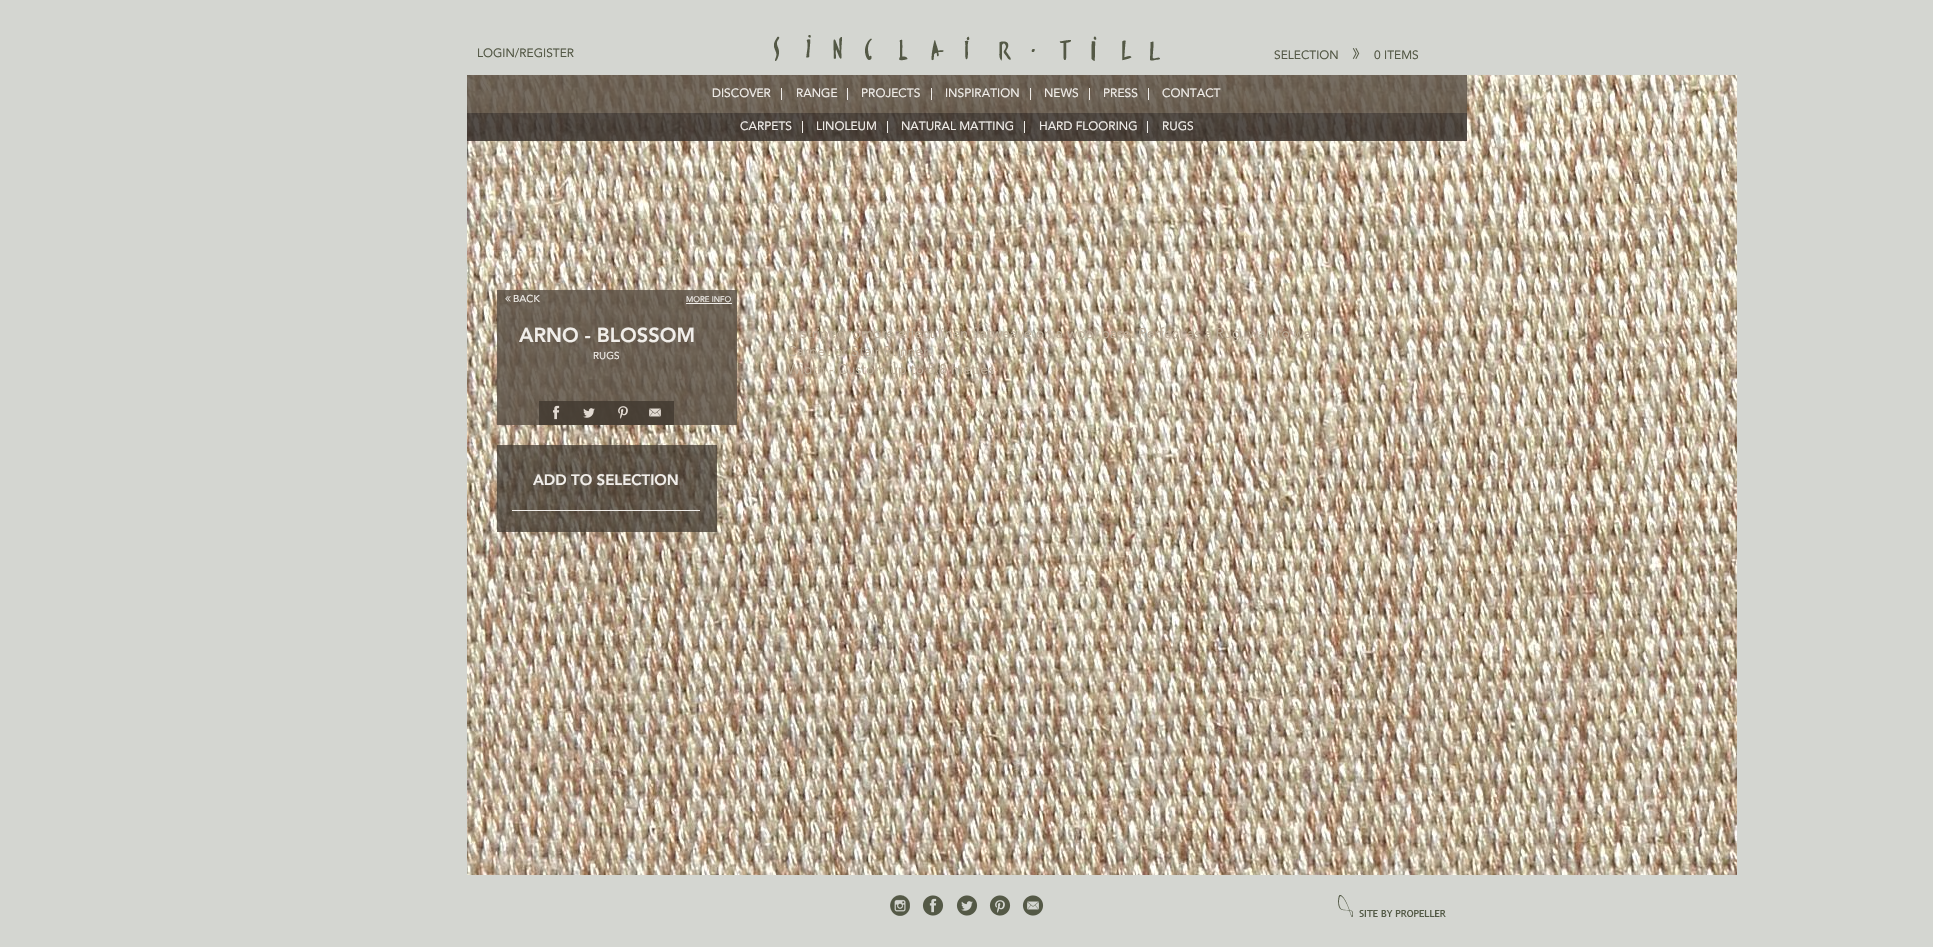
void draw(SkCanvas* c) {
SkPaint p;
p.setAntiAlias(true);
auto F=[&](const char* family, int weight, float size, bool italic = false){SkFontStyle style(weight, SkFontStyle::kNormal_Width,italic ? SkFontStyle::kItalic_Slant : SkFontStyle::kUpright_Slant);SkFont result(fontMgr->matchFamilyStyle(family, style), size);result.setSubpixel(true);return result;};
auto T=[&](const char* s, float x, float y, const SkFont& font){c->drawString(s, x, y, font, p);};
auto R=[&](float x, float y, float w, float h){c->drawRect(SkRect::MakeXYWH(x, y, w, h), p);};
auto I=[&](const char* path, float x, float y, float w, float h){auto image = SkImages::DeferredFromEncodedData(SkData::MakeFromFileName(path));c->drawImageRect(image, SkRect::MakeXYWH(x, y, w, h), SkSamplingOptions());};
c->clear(0xffd4d6d1);
auto f1 = F("Avenir",400,12);
p.setColor(0xff545946);
T("LOGIN/REGISTER",477,57,f1);
I("1.png",774,35,386,26);
T("SELECTION",1274,59,f1);
I("2.png",1352,48,8,11);
T("0 ITEMS",1374,59,f1);
I("3.png",467,75,1270,800);
p.setColor(0xd95d5247);
R(467,75,1000,38);
p.setColor(0xfff1eeea);
R(781,88,1,12);
T("DISCOVER",712,97,f1);
R(847,88,1,12);
T("RANGE",796,97,f1);
R(931,88,1,12);
T("PROJECTS",861,97,f1);
R(1030,88,1,12);
T("INSPIRATION",945,97,f1);
R(1089,88,1,12);
T("NEWS",1044,97,f1);
R(1148,88,1,12);
T("PRESS",1103,97,f1);
T("CONTACT",1162,97,f1);
p.setColor(0xd9362f2a);
R(467,113,1000,28);
p.setColor(0xfff1eeea);
R(802,121,1,12);
T("CARPETS",740,130,f1);
R(887,121,1,12);
T("LINOLEUM",816,130,f1);
R(1024,121,1,12);
T("NATURAL MATTING",901,130,f1);
R(1147,121,1,12);
T("HARD FLOORING",1039,130,f1);
T("RUGS",1162,130,f1);
p.setColor(0xd95d5247);
R(497,290,240,135);
I("4.png",505,296,6,6);
auto f2 = F("Avenir",400,10);
p.setColor(0xfff1eeea);
T("BACK",513,302,f2);
auto f3 = F("Avenir",400,8);
T("MORE INFO",686,302,f3);
R(686,303,46,1);
auto f4 = F("Avenir",900,20);
T("ARNO - BLOSSOM",519,342,f4);
T("RUGS",593,359,f2);
p.setColor(0xd9423930);
R(539,401,135,24);
I("5.png",553,405,7,15);
I("6.png",583,408,12,10);
I("7.png",618,406,10,13);
I("8.png",649,408,12,9);
p.setColor(0xbf423930);
R(497,445,220,87);
p.setColor(0xfff1eeea);
R(512,510,188,1);
auto f5 = F("Avenir",900,15);
T("ADD TO SELECTION",533,485,f5);
auto f6 = F("Avenir",400,14);
p.setColor(0xffbcad99);
T("A striped, ombré effect linen flatweave on a wool base. Perfect as a Rug, wall to wall",787,338,f6);
T("Carpet or Stair Runner.",787,356,f6);
T("Width - Custom up to 5.8 metres",787,374,f6);
I("9.png",890,895,20,21);
I("10.png",922,895,22,21);
I("11.png",956,895,22,21);
I("12.png",989,895,22,21);
I("13.png",1022,895,22,21);
I("14.png",1338,895,108,22);
}
